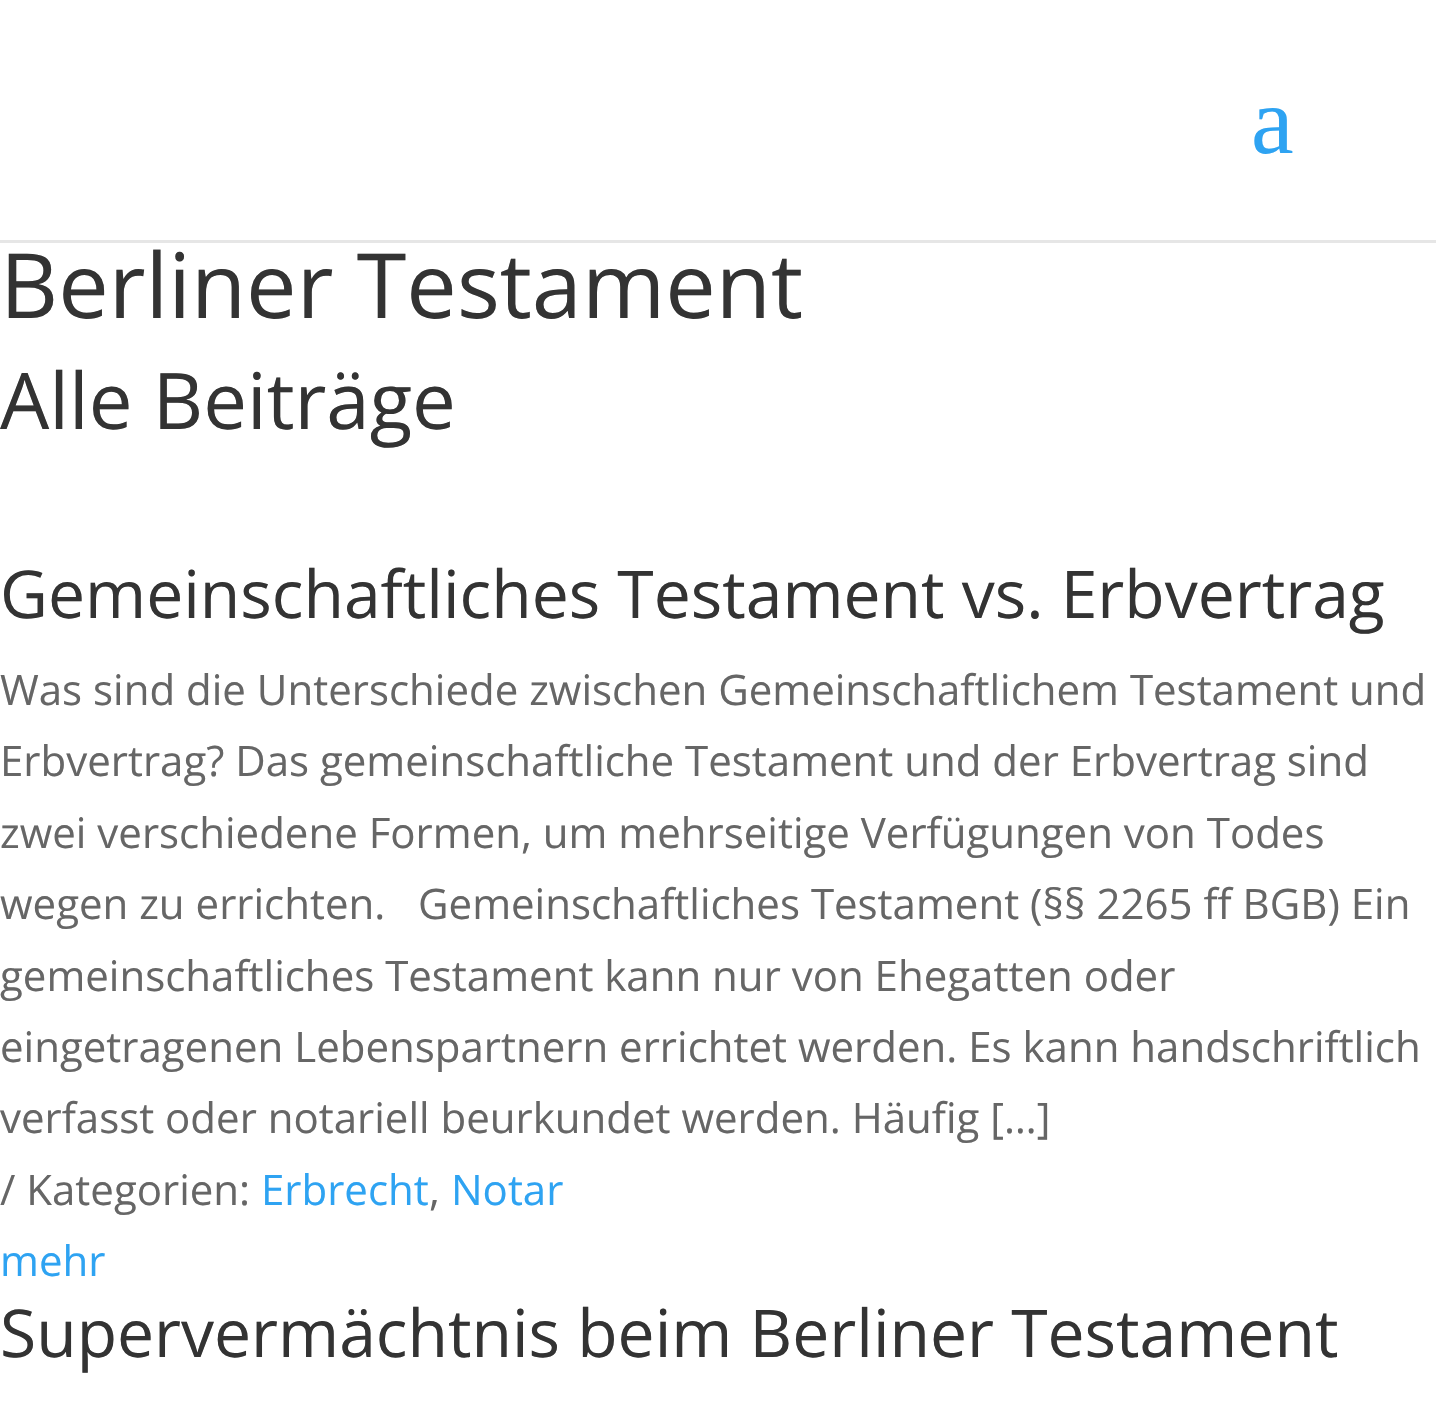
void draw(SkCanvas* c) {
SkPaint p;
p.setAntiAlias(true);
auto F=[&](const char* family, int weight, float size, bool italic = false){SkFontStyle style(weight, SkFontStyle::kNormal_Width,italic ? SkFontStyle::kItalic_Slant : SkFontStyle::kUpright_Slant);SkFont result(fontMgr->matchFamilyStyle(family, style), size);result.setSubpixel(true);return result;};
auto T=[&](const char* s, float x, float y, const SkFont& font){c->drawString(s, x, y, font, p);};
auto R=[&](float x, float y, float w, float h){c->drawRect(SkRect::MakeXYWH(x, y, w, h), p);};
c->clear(0xffffffff);
p.setColor(0xffe6e6e6);
R(0,240,1436,3);
auto f1 = F("Liberation Serif",400,96);
p.setColor(0xff2ea3f2);
T("a",1251,153,f1);
auto f2 = F("Open Sans",400,90);
p.setColor(0xff333333);
T("Berliner Testament",0,318,f2);
auto f3 = F("Open Sans",400,78);
T("Alle Beiträge",0,429,f3);
auto f4 = F("Open Sans",400,66);
T("Gemeinschaftliches Testament vs. Erbvertrag",0,618,f4);
auto f5 = F("Open Sans",400,42);
p.setColor(0xff666666);
T("Was sind die Unterschiede zwischen Gemeinschaftlichem Testament und",0,705,f5);
T("Erbvertrag? Das gemeinschaftliche Testament und der Erbvertrag sind",0,776,f5);
T("zwei verschiedene Formen, um mehrseitige Verfügungen von Todes",0,848,f5);
T("wegen zu errichten.   Gemeinschaftliches Testament (§§ 2265 ff BGB) Ein",0,919,f5);
T("gemeinschaftliches Testament kann nur von Ehegatten oder",0,991,f5);
T("eingetragenen Lebenspartnern errichtet werden. Es kann handschriftlich",0,1062,f5);
T("verfasst oder notariell beurkundet werden. Häufig […]",0,1133,f5);
T("/ Kategorien:",0,1205,f5);
p.setColor(0xff2ea3f2);
T("Erbrecht",261,1205,f5);
p.setColor(0xff666666);
T(",",429,1205,f5);
p.setColor(0xff2ea3f2);
T("Notar",451,1205,f5);
T("mehr",0,1276,f5);
p.setColor(0xff333333);
T("Supervermächtnis beim Berliner Testament",0,1357,f4);
}
